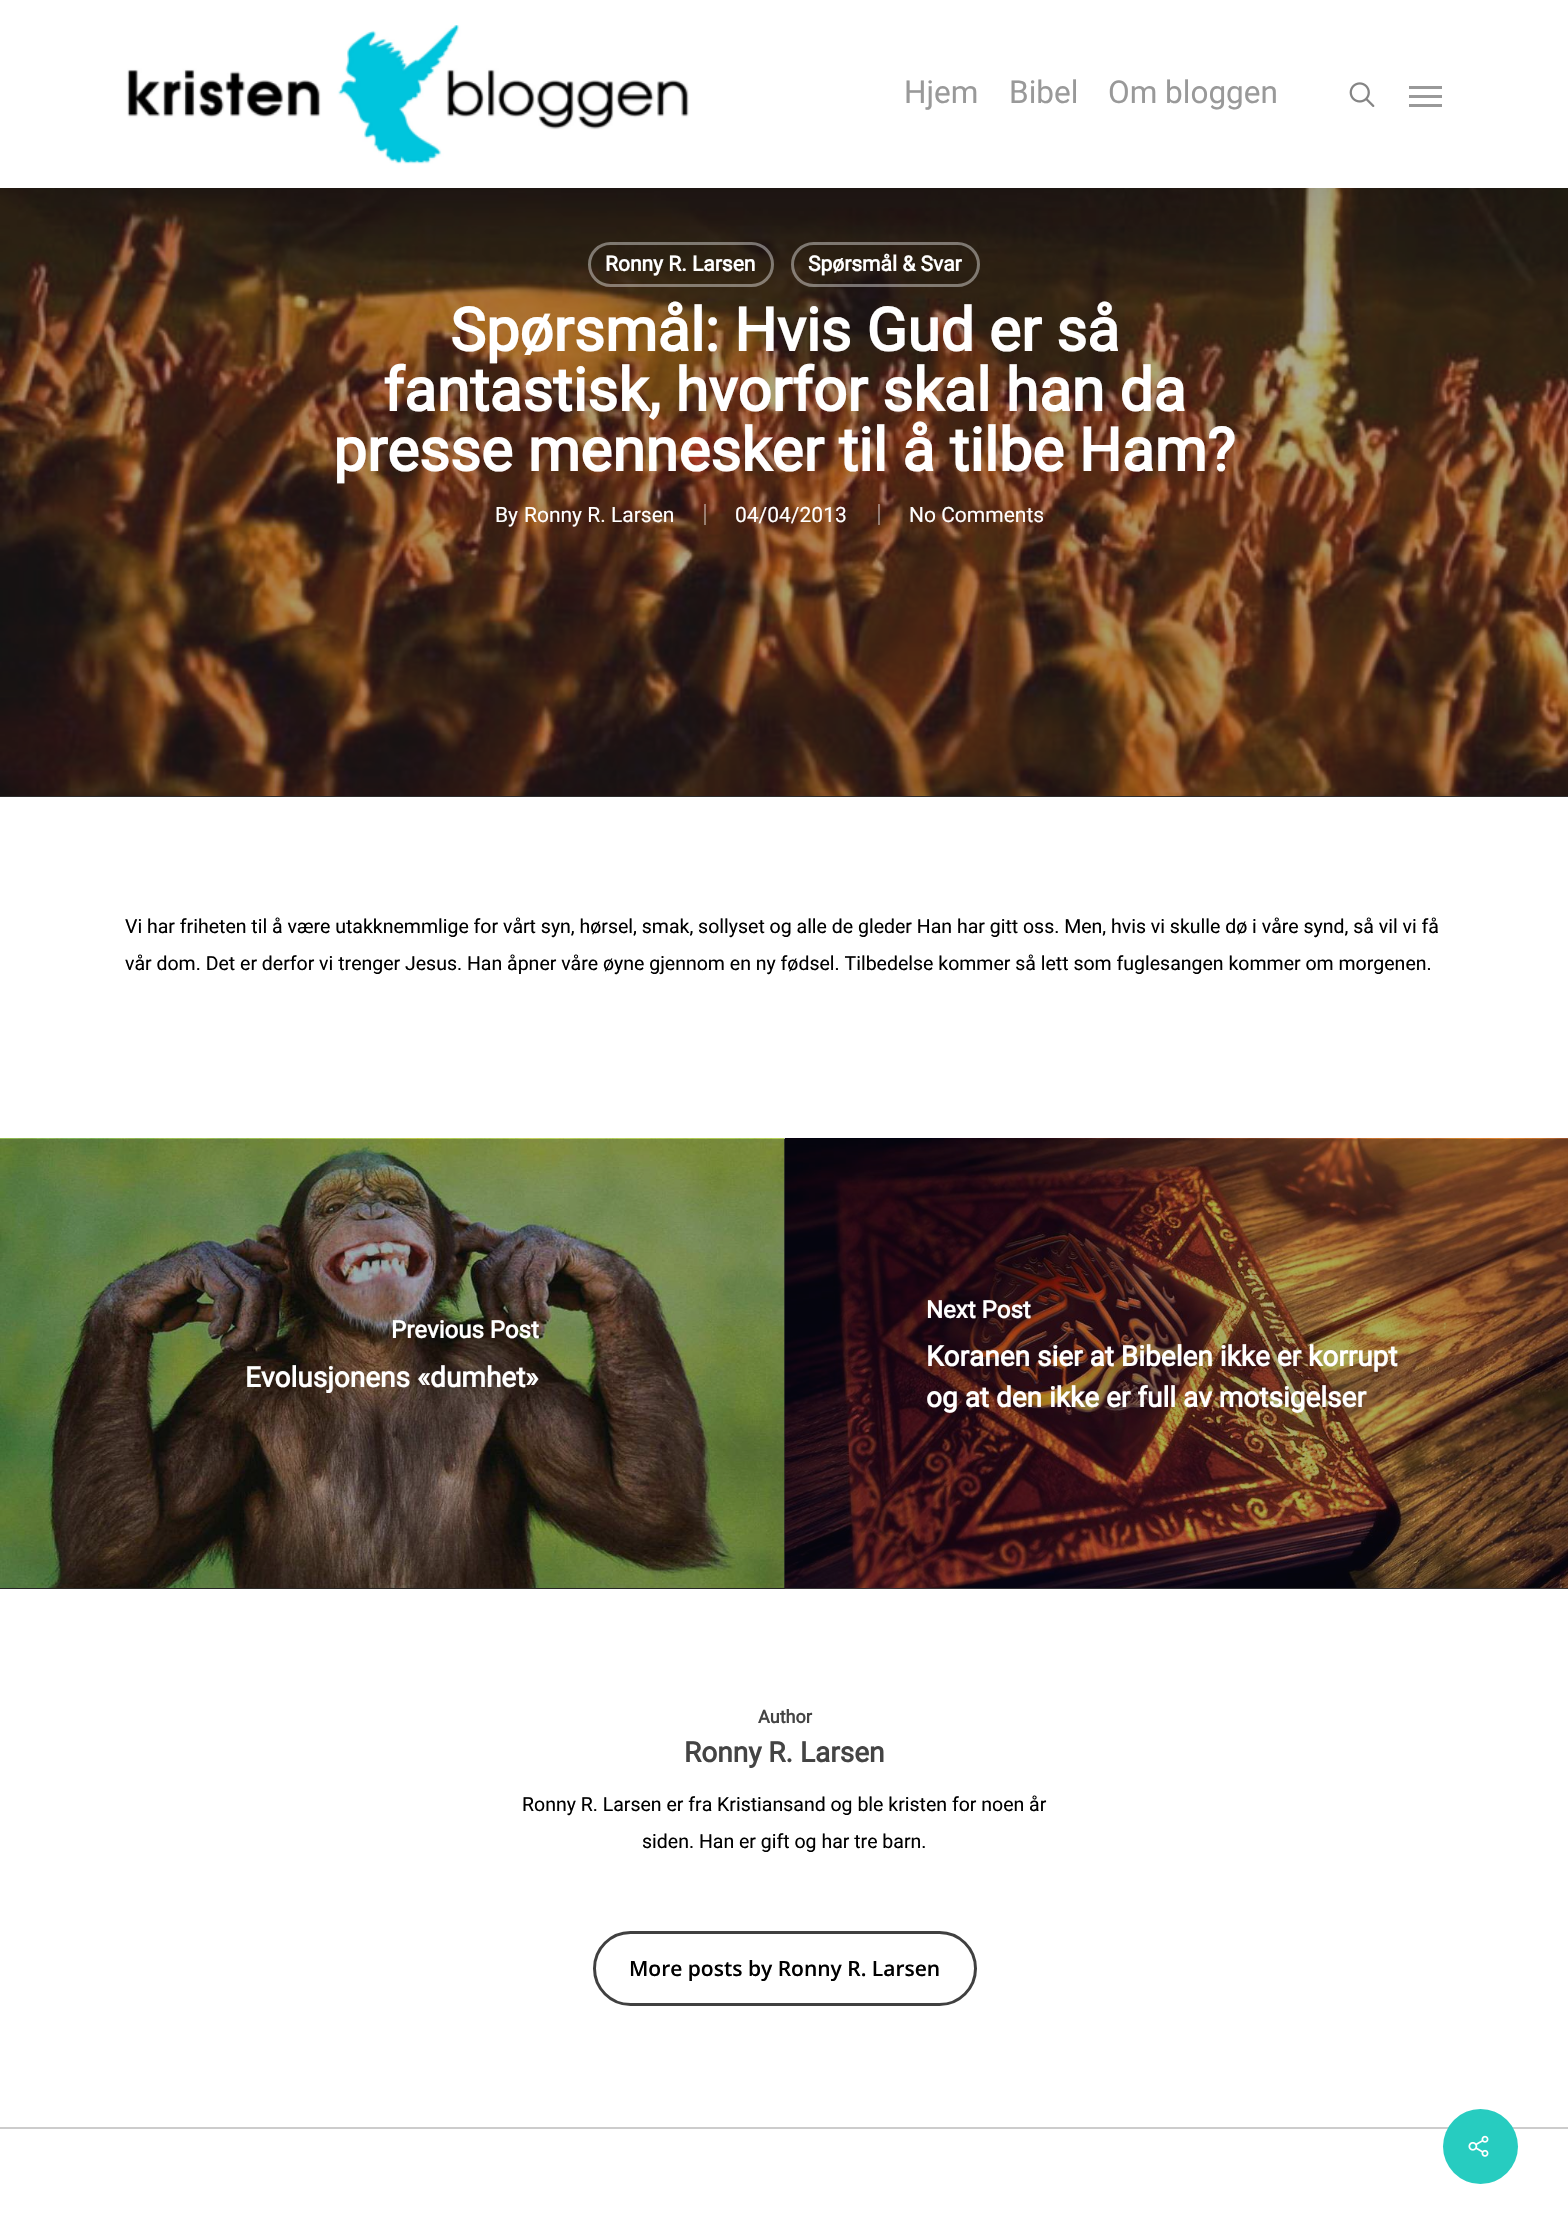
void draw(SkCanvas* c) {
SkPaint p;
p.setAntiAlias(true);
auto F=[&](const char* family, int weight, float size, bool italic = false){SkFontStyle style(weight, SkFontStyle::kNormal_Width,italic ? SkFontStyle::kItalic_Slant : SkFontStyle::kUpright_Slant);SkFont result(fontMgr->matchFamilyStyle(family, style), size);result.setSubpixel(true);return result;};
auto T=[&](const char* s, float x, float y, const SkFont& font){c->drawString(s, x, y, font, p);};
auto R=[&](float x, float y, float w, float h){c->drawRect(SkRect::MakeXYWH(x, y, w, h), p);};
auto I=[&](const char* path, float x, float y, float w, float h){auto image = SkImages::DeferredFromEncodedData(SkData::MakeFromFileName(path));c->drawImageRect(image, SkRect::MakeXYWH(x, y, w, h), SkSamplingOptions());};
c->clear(0xffffffff);
I("3.png",0,188,1568,608);
p.setStroke(true);
p.setStrokeWidth(3);
p.setColor(0x66ffffff);
c->drawRoundRect(SkRect::MakeXYWH(589.5,243.5,183,42),21,21,p);
c->drawRoundRect(SkRect::MakeXYWH(792.5,243.5,186,42),21,21,p);
p.setStroke(false);
p.setColor(0x26000000);
p.setMaskFilter(SkMaskFilter::MakeBlur(kNormal_SkBlurStyle, 34));
c->drawRect(SkRect::MakeXYWH(0,5,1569,187),p);
p.setMaskFilter(nullptr);
p.setColor(0xffffffff);
R(0,0,1568,188);
I("1.png",127,25,562,139);
auto f1 = F("Roboto",400,31.5);
p.setColor(0xff999999);
T("Hjem",904,103,f1);
T("Bibel",1009,103,f1);
T("Om bloggen",1108,103,f1);
I("2.png",1349,82,26,25);
R(1409,86,33,3);
R(1409,104,33,3);
R(1409,95,33,3);
p.setColor(0xff2d2d2d);
R(0,796,1568,1);
auto f2 = F("Roboto",700,21);
p.setColor(0xffffffff);
T("Ronny R. Larsen",605,271,f2);
T("Spørsmål & Svar",808,271,f2);
auto f3 = F("Roboto",700,60);
T("Spørsmål: Hvis Gud er så",450,351,f3);
T("fantastisk, hvorfor skal han da",383,411,f3);
T("presse mennesker til å tilbe Ham?",333,471,f3);
auto f4 = F("Roboto",400,21);
T("By",495,522,f4);
T("Ronny R. Larsen",524,522,f4);
p.setColor(0x66ffffff);
R(704,504,2,21);
p.setColor(0xffffffff);
T("04/04/2013",735,522,f4);
p.setColor(0x66ffffff);
R(878,504,2,21);
p.setColor(0xffffffff);
T("No Comments",909,522,f4);
auto f5 = F("Roboto",400,19.5);
p.setColor(0xff000000);
T("Vi har friheten til å være utakknemmlige for vårt syn, hørsel, smak, sollyset og alle de gleder Han har gitt oss. Men, hvis vi skulle dø i våre synd, så vil vi få",125,933,f5);
T("vår dom. Det er derfor vi trenger Jesus. Han åpner våre øyne gjennom en ny fødsel. Tilbedelse kommer så lett som fuglesangen kommer om morgenen.",125,970,f5);
p.setColor(0xff333333);
R(0,1139,1568,450);
I("4.png",0,1138,785,450);
I("5.png",784,1138,784,450);
p.setColor(0x590d0d0d);
R(0,1139,785,450);
auto f6 = F("Roboto",700,24);
p.setColor(0xffffffff);
T("Previous Post",391,1338,f6);
auto f7 = F("Roboto",700,28);
T("Evolusjonens «dumhet»",245,1387,f7);
T("Next Post",926,1318,f6);
T("Koranen sier at Bibelen ikke er korrupt",926,1366,f7);
T("og at den ikke er full av motsigelser",926,1407,f7);
auto f8 = F("Roboto",700,18);
p.setColor(0xff444444);
T("Author",758,1723,f8);
T("Ronny R. Larsen",684,1762,f7);
p.setColor(0xff000000);
T("Ronny R. Larsen er fra Kristiansand og ble kristen for noen år",522,1811,f5);
T("siden. Han er gift og har tre barn.",642,1848,f5);
p.setStroke(true);
p.setColor(0xff404040);
c->drawRoundRect(SkRect::MakeXYWH(594.5,1932.5,381,72),36,36,p);
auto f9 = F("Open Sans",600,21);
p.setStroke(false);
p.setColor(0xff000000);
T("More posts by Ronny R. Larsen",629,1976,f9);
p.setColor(0xffcccccc);
R(0,2127,1568,2);
p.setColor(0xff27ccc0);
c->drawCircle(1480.5,2146.5,37.5,p);
I("6.png",1468,2135,21,22);
}
